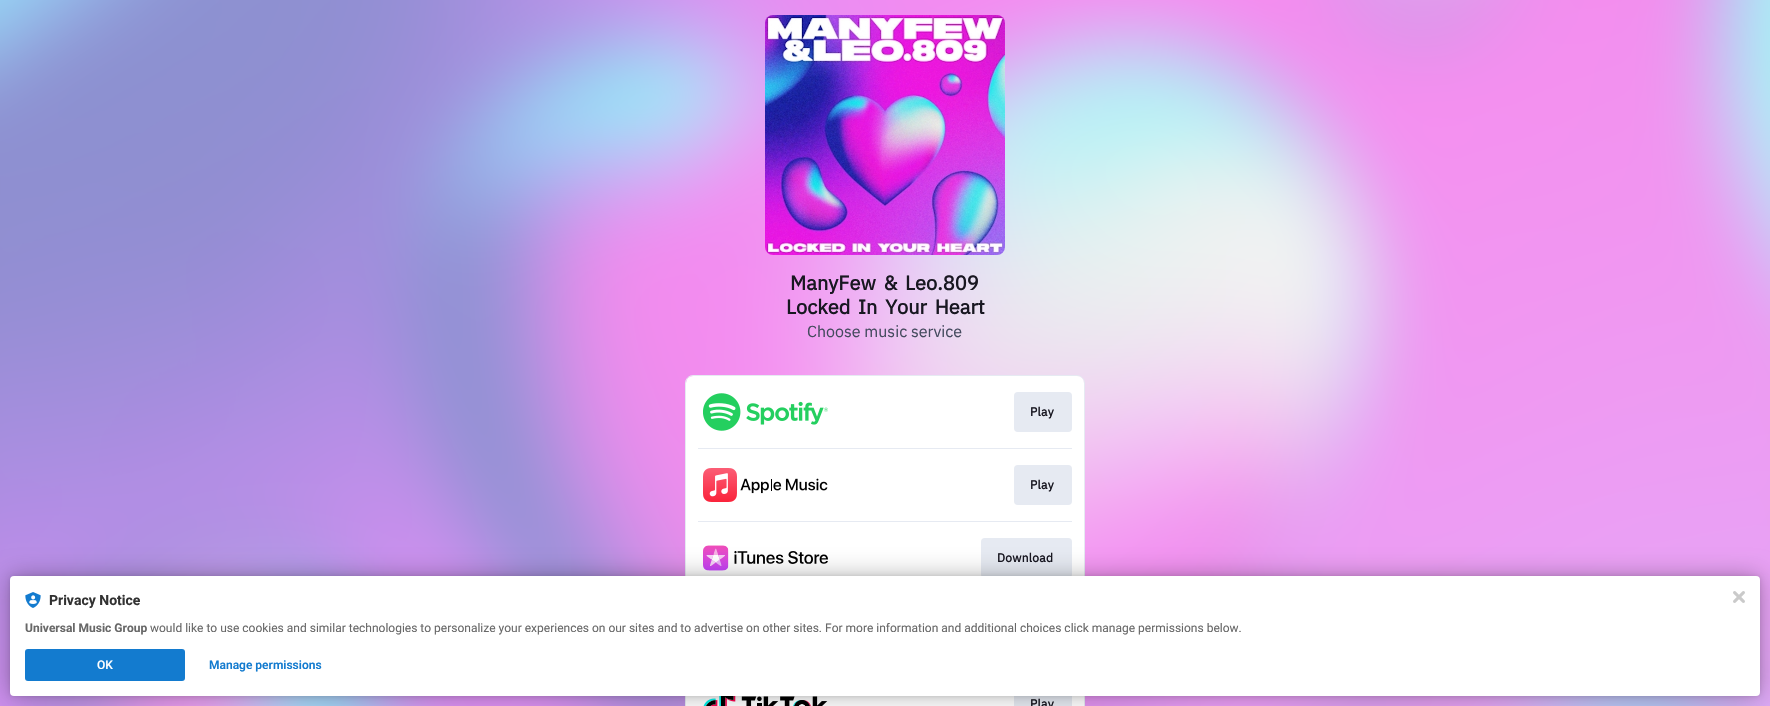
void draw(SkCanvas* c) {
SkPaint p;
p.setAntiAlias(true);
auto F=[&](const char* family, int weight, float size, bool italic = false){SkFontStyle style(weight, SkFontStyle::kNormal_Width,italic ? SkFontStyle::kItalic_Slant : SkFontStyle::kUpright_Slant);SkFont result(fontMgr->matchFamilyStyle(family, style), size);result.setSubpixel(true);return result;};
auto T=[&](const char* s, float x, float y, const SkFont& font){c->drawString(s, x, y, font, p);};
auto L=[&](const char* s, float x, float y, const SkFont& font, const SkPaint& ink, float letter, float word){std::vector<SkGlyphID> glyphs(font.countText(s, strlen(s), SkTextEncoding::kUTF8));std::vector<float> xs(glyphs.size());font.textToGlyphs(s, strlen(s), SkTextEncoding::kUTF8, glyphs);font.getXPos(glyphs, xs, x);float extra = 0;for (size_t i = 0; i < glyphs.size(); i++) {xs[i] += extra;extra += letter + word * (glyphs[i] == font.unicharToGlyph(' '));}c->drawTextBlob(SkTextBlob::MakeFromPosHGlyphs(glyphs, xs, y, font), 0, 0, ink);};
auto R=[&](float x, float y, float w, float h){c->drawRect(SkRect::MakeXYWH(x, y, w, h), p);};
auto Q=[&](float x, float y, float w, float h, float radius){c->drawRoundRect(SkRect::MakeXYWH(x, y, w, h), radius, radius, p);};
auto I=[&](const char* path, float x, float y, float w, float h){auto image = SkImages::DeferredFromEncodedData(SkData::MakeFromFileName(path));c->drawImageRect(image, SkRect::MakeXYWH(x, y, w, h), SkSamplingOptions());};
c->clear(0xffffffff);
I("1.png",0,0,1770,706);
I("2.png",765,15,240,240);
auto f1 = F("IBM Plex Sans",700,20);
p.setColor(0xff181721);
L("ManyFew & Leo.809",790,290,f1,p,0,3);
L("Locked In Your Heart",786,314,f1,p,0,3);
auto f2 = F("IBM Plex Sans",400,16);
p.setColor(0xff454b5f);
T("Choose music service",807,337,f2);
p.setStroke(true);
p.setStrokeWidth(1);
p.setColor(0xffe6eaf2);
c->drawRoundRect(SkRect::MakeXYWH(685.5,375.5,399,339),7.5,7.5,p);
p.setStroke(false);
p.setColor(0xffffffff);
Q(686,376,398,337,7);
I("3.png",703,393,125,38);
p.setColor(0xffe6eaf2);
Q(1014,392,58,40,4);
auto f3 = F("IBM Plex Sans",700,12);
p.setColor(0xff181721);
L("Play",1030,416,f3,p,.25,0);
p.setColor(0xffe6eaf2);
R(698,448,374,1);
I("4.png",703,468,125,34);
Q(1014,465,58,40,4);
p.setColor(0xff181721);
L("Play",1030,489,f3,p,.25,0);
p.setColor(0xffe6eaf2);
R(698,521,374,1);
I("5.png",703,545,125,26);
Q(981,538,91,40,4);
p.setColor(0xff181721);
L("Download",997,562,f3,p,.25,0);
I("6.png",703,696,125,10);
p.setColor(0xffe6eaf2);
R(1014,696,58,10);
p.setColor(0xff181721);
L("Play",1030,708,f3,p,.25,0);
p.setColor(0x1f000000);
p.setMaskFilter(SkMaskFilter::MakeBlur(kNormal_SkBlurStyle, 2));
c->drawRoundRect(SkRect::MakeXYWH(10,576,1750,120),4,4,p);
p.setMaskFilter(nullptr);
p.setColor(0x4d000000);
p.setMaskFilter(SkMaskFilter::MakeBlur(kNormal_SkBlurStyle, 12));
c->drawRoundRect(SkRect::MakeXYWH(10,576,1750,120),4,4,p);
p.setMaskFilter(nullptr);
p.setColor(0xffffffff);
Q(10,576,1750,120,4);
I("7.png",25,592,16,16);
auto f4 = F("Roboto",700,14);
p.setColor(0xff323232);
T("Privacy Notice",49,605,f4);
auto f5 = F("Roboto",700,12);
p.setColor(0xff686868);
T("Universal Music Group",25,632,f5);
auto f6 = F("Roboto",400,12);
T("would like to use cookies and similar technologies to personalize your experiences on our sites and to advertise on other sites. For more information and additional choices click manage permissions below.",150,632,f6);
p.setColor(0xff137bcf);
Q(25,649,160,32,3);
auto f7 = F("Roboto",500,12);
p.setColor(0xffffffff);
T("OK",97,669,f7);
auto f8 = F("Roboto",600,12);
p.setColor(0xff137bcf);
T("Manage permissions",209,669,f8);
I("8.png",1733,591,12,12);
}
